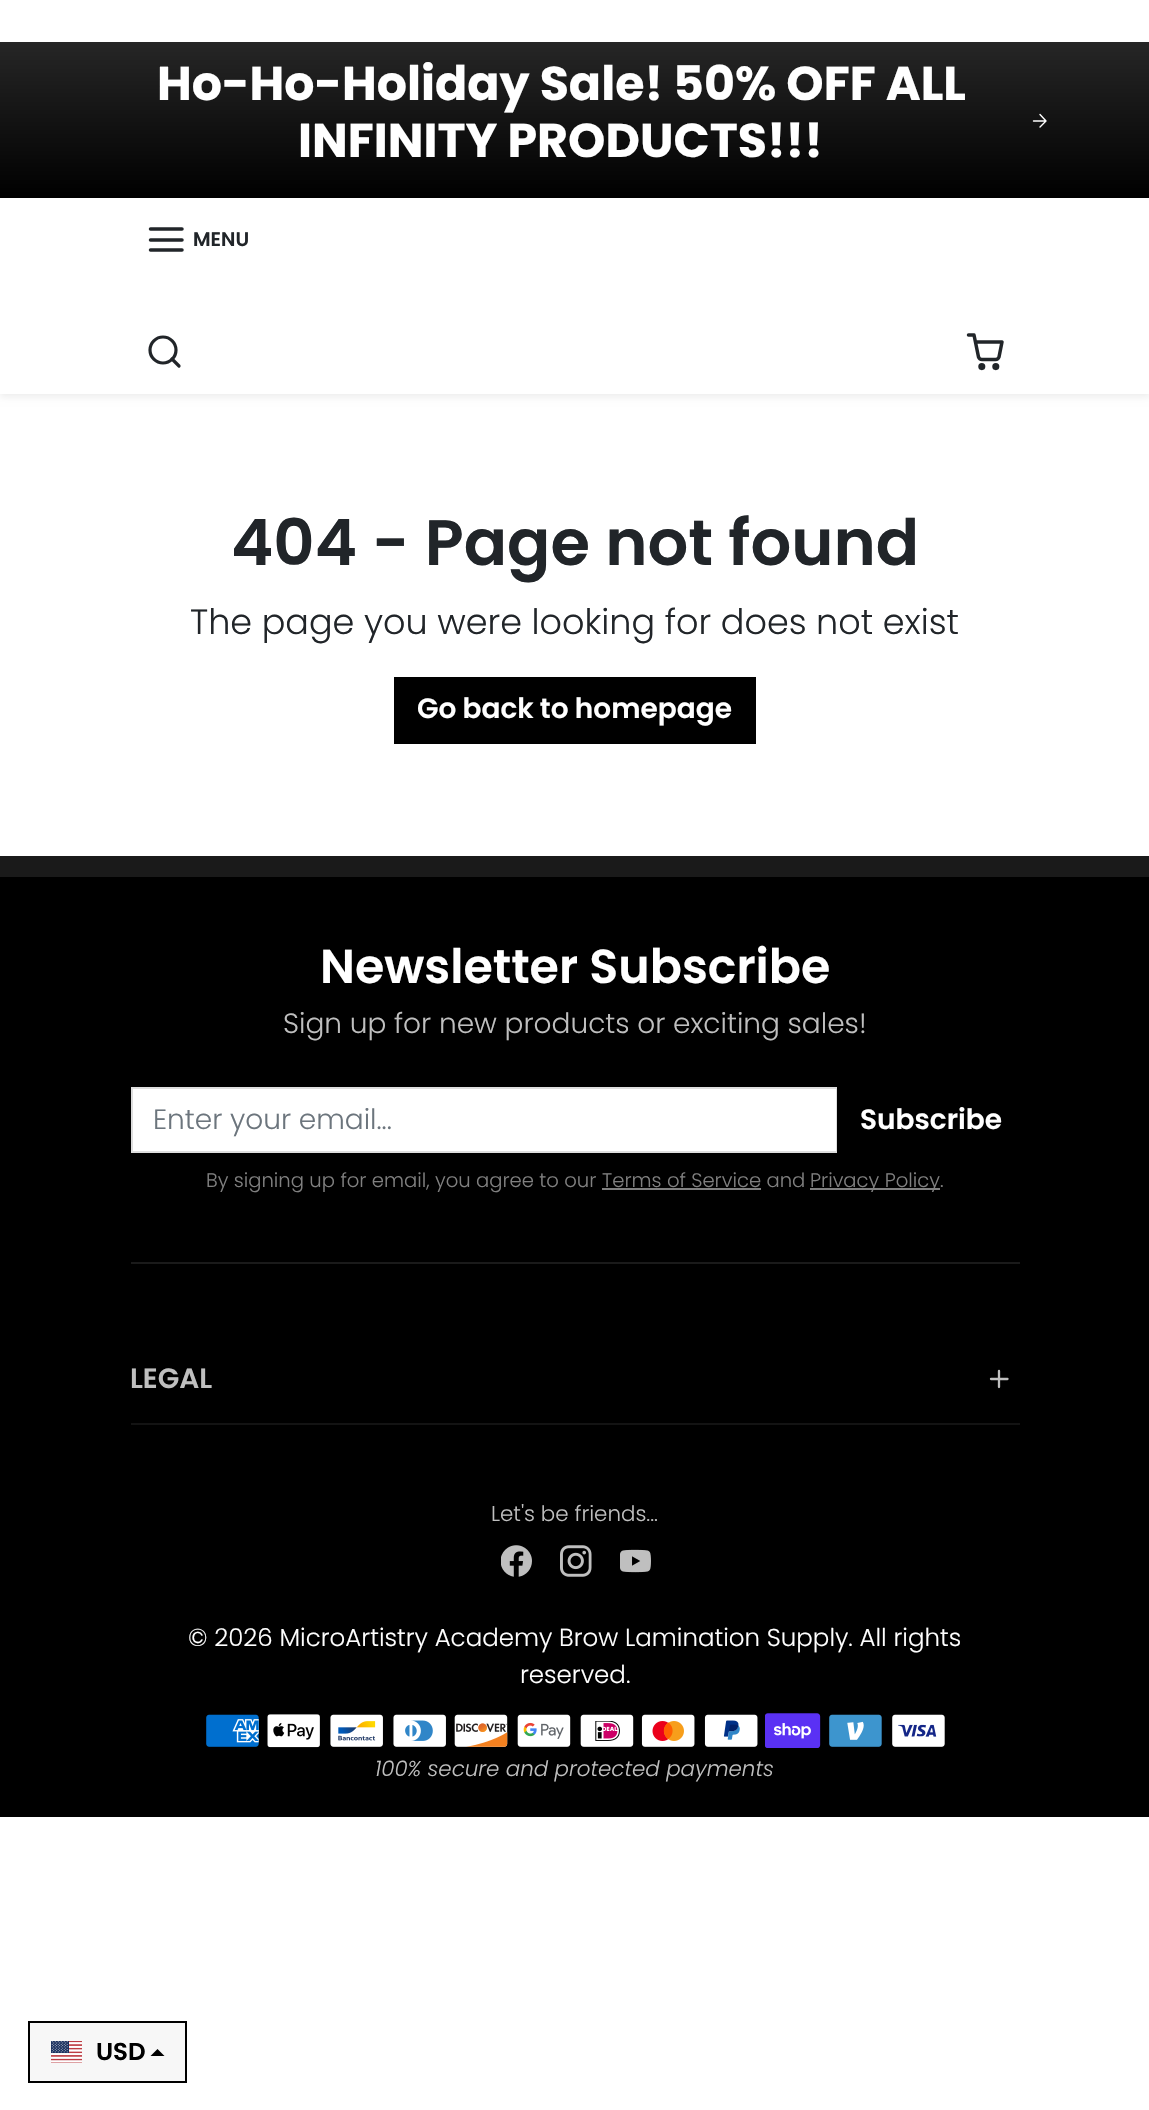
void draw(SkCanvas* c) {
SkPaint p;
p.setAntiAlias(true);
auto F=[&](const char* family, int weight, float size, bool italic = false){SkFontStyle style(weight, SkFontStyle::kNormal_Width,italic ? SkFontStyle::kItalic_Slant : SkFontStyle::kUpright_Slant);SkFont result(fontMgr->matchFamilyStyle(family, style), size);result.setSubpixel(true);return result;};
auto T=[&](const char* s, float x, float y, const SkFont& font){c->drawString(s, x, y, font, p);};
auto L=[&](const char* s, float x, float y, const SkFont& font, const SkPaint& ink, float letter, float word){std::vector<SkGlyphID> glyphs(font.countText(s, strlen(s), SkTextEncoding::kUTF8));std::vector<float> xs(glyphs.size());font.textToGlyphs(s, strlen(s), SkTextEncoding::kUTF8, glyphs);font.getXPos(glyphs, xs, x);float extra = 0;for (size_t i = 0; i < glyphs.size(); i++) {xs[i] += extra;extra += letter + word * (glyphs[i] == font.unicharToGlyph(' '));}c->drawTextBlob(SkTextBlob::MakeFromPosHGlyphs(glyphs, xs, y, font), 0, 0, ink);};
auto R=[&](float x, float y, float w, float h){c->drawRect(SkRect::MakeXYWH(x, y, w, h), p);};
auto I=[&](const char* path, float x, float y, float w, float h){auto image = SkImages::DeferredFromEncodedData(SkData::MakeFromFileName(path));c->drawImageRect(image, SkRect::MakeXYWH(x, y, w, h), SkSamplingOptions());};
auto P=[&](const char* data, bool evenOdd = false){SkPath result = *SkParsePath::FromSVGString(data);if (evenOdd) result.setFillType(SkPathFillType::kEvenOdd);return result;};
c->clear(0xffffffff);
{
const SkColor colors[] = {0xff262626,0xff000000};
const float stops[] = {0,1};
const SkPoint ends[] = {{575,42}, {575,198}};
p.setShader(SkGradientShader::MakeLinear(ends, colors, stops, 2, SkTileMode::kClamp));
p.setAlpha(255);
}
R(0,42,1149,156);
auto f1 = F("Poppins",700,47.5);
p.setShader(nullptr);
p.setColor(0xffffffff);
T("Ho-Ho-Holiday Sale! 50% OFF ALL",157,100,f1);
T("INFINITY PRODUCTS!!!",298,157,f1);
p.setStroke(true);
p.setStrokeWidth(1.4);
p.setStrokeCap(SkPaint::kRound_Cap);
p.setStrokeJoin(SkPaint::kRound_Join);
c->drawPath(P("M1033.5 121h11.5m-5-6.5l6 6.5l-6 6"),p);
p.setStroke(false);
p.setColor(0x12000000);
p.setMaskFilter(SkMaskFilter::MakeBlur(kNormal_SkBlurStyle, 3.5));
c->drawRect(SkRect::MakeXYWH(0,201,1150,196),p);
p.setMaskFilter(nullptr);
p.setColor(0xffffffff);
R(0,198,1149,196);
p.setStroke(true);
p.setStrokeWidth(3.5);
p.setColor(0xff212529);
c->drawPath(P("M150.5 240h31.5m-31.5-11h31.5m-31.5 21h31.5"),p);
auto f2 = F("Poppins",600,19.6);
p.setStroke(false);
T("MENU",193,246,f2);
p.setStroke(true);
p.setStrokeWidth(3.2);
p.setStrokeCap(SkPaint::kButt_Cap);
p.setStrokeJoin(SkPaint::kMiter_Join);
c->drawCircle(163,350,13,p);
p.setStrokeCap(SkPaint::kRound_Cap);
p.setStrokeJoin(SkPaint::kRound_Join);
c->drawPath(P("M179 366l-7-7"),p);
p.setStrokeWidth(3.5);
p.setStrokeCap(SkPaint::kButt_Cap);
p.setStrokeJoin(SkPaint::kMiter_Join);
c->drawCircle(981.8,366.6,1.8,p);
c->drawCircle(995.8,366.6,1.8,p);
p.setStrokeCap(SkPaint::kRound_Cap);
p.setStrokeJoin(SkPaint::kRound_Join);
c->drawPath(P("M968.5 335h5.5l4.5 22c.5 1.5 2 2.5 3.5 2.5h13.5c2 0 3-1 3.5-2.5l3-15h-25.5"),p);
auto f3 = F("Poppins",600,64);
p.setStroke(false);
T("404 - Page not found",231,565,f3);
auto f4 = F("Poppins",300,35);
T("The page you were looking for does not exist",190,634,f4);
p.setColor(0xff000000);
R(394,677,362,67);
auto f5 = F("Poppins",600,28);
p.setColor(0xffffffff);
L("Go back to homepage",417,718,f5,p,0,-.5);
p.setColor(0xff1a1a1a);
R(0,856,1149,21);
p.setColor(0xff000000);
R(0,877,1149,940);
p.setColor(0xff1a1a1a);
R(131,1262,889,2);
auto f6 = F("Poppins",600,47.5);
p.setColor(0xffffffff);
T("Newsletter Subscribe",320,983,f6);
auto f7 = F("Poppins",300,28);
p.setColor(0xffbfbfbf);
T("Sign up for new products or exciting sales!",283,1033,f7);
p.setColor(0xffffffff);
c->drawRect(SkRect::MakeXYWH(132,1088,705,64),p);
p.setStroke(true);
p.setStrokeWidth(2);
p.setStrokeCap(SkPaint::kButt_Cap);
p.setStrokeJoin(SkPaint::kMiter_Join);
p.setColor(0xffdedede);
c->drawRect(SkRect::MakeXYWH(132,1088,705,64),p);
p.setStroke(false);
p.setColor(0xff6c757d);
T("Enter your email...",153,1129,f7);
p.setColor(0xff000000);
R(837,1087,1,66);
p.setColor(0xffffffff);
T("Subscribe",860,1129,f5);
auto f8 = F("Poppins",300,19.6);
p.setColor(0xff808080);
T("By signing up for email, you agree to our",206,1187,f8);
T("Terms of Service and",602,1187,f8);
R(602,1188,159,2);
R(810,1188,130,2);
T("Privacy Policy.",810,1187,f8);
p.setColor(0xff131313);
R(131,1423,889,2);
p.setColor(0xffbfbfbf);
T("LEGAL",130,1388,f5);
p.setStroke(true);
p.setStrokeWidth(2.3);
p.setStrokeCap(SkPaint::kRound_Cap);
p.setStrokeJoin(SkPaint::kRound_Join);
c->drawPath(P("M999 1371v16m-8-8h16.5"),p);
auto f9 = F("Poppins",300,21.4);
p.setStroke(false);
T("Let's be friends...",491,1521,f9);
I("1.png",501,1545,31,32);
I("2.png",560,1545,32,32);
I("3.png",620,1549,31,24);
auto f10 = F("Poppins",300,24.5);
p.setColor(0xffffffff);
T("© 2026 MicroArtistry Academy Brow Lamination Supply. All rights",188,1646,f10);
T("reserved.",520,1683,f10);
I("4.png",206,1714,53,33);
I("5.png",267,1714,53,34);
I("6.png",330,1714,53,33);
I("7.png",393,1714,53,33);
I("8.png",454,1714,54,33);
I("9.png",517,1714,54,33);
I("10.png",580,1714,54,33);
I("11.png",641,1714,54,33);
I("12.png",704,1714,54,33);
I("13.png",765,1713,56,35);
I("14.png",829,1714,53,33);
I("15.png",892,1714,53,33);
auto f11 = F("Poppins",300,21.4,true);
p.setColor(0xffbfbfbf);
T("100% secure and protected payments",375,1776,f11);
p.setColor(0xfff7f7f7);
c->drawRect(SkRect::MakeXYWH(29,2022,157,60),p);
p.setStroke(true);
p.setStrokeWidth(2);
p.setStrokeCap(SkPaint::kButt_Cap);
p.setStrokeJoin(SkPaint::kMiter_Join);
p.setColor(0xff000000);
c->drawRect(SkRect::MakeXYWH(29,2022,157,60),p);
I("16.png",51,2041,31,22);
auto f12 = F("Poppins",600,24.5);
p.setStroke(false);
T("USD",96,2060,f12);
c->drawPath(P("M164.5 2056h-14l7-7z"),p);
}
